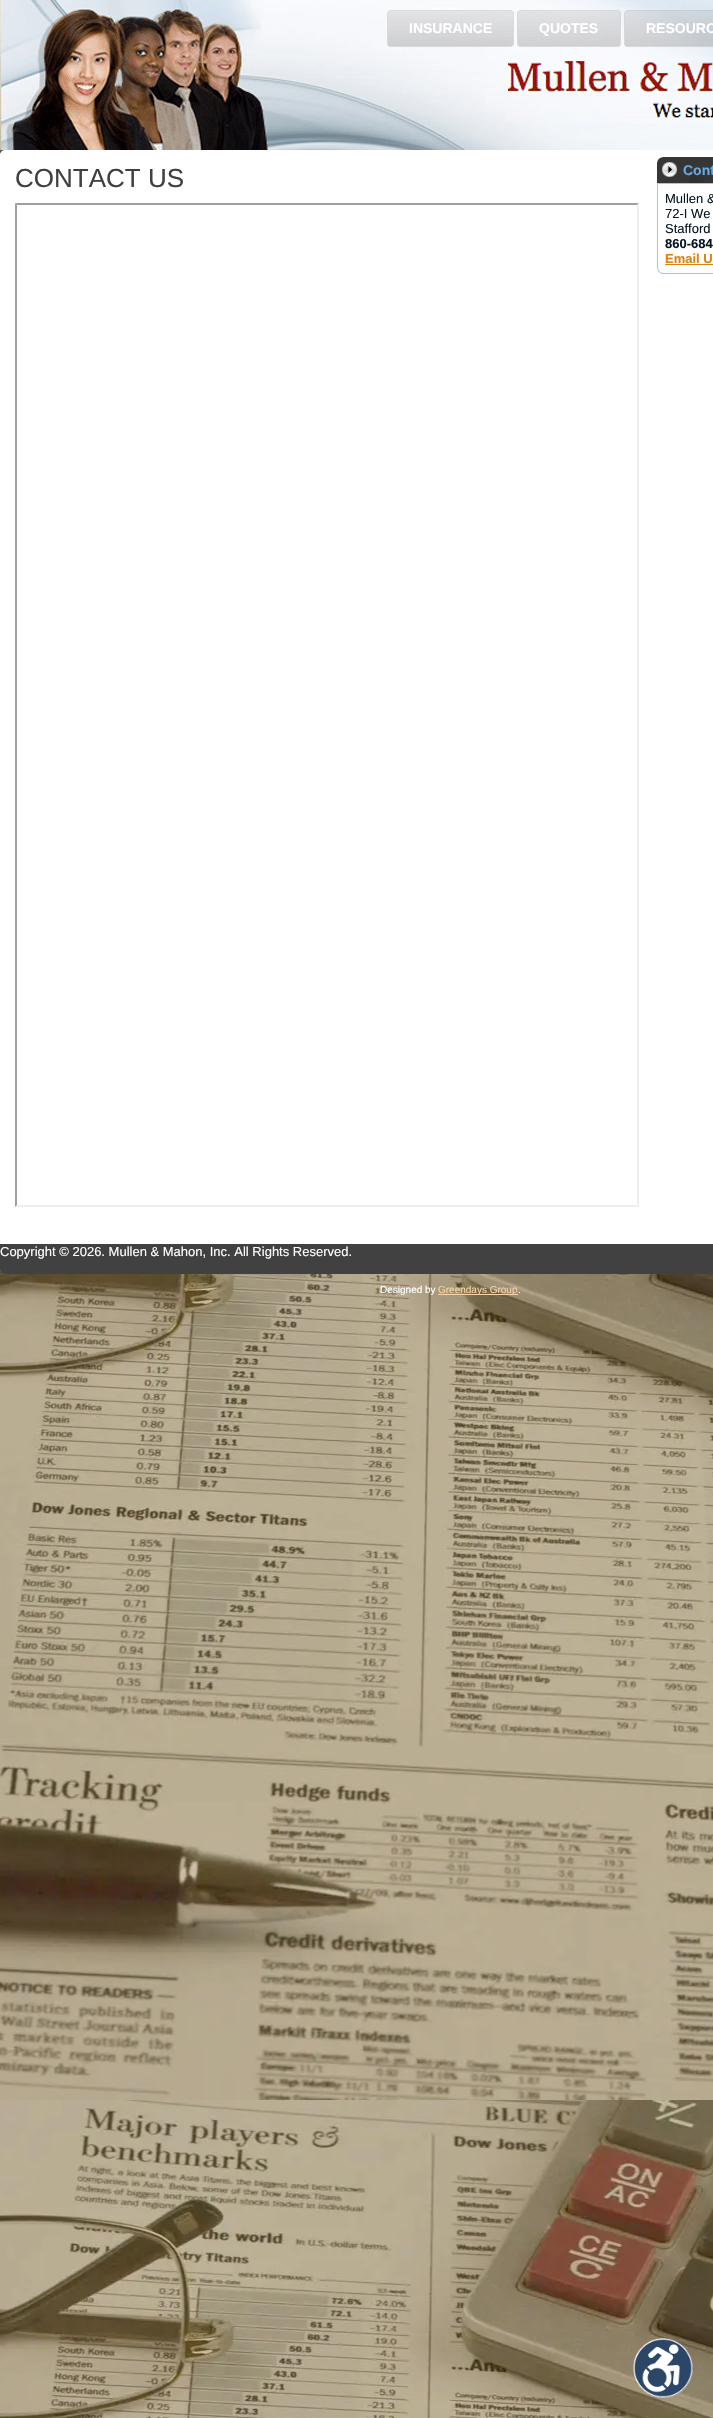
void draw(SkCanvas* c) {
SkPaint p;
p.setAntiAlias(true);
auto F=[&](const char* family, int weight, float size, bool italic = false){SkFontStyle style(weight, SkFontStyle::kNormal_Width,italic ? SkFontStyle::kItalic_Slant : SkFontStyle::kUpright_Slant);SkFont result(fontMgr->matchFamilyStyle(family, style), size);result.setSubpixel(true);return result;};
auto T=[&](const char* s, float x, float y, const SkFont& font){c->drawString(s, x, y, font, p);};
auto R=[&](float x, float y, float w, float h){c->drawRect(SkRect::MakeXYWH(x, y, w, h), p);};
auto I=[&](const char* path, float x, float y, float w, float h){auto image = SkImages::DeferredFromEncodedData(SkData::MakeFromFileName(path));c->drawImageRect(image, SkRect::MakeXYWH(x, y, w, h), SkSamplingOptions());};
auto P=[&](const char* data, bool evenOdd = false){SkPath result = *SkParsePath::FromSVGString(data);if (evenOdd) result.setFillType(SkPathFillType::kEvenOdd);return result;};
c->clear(0xffffffff);
I("1.png",0,1269,713,1149);
I("2.png",0,150,5,5);
I("3.png",0,0,713,150);
I("4.png",387,10,123,37);
I("5.png",510,10,4,37);
auto f1 = F("Liberation Sans",700,14);
p.setColor(0xffffffff);
T("INSURANCE",409,33,f1);
I("6.png",517,10,100,37);
I("7.png",617,10,4,37);
T("QUOTES",539,33,f1);
I("8.png",624,10,89,37);
T("RESOURC",646,33,f1);
I("9.png",0,150,713,1124);
I("10.png",0,150,5,5);
auto f2 = F("Liberation Sans",400,26);
p.setColor(0xff404040);
T("CONTACT US",15,187,f2);
p.setColor(0xff9f9f9f);
c->drawPath(P("M15 203h624l-2 2h-620z"),p);
p.setColor(0xffeeeeee);
c->drawPath(P("M639 203v1004l-2-2v-1000z"),p);
c->drawPath(P("M639 1207h-624l2-2h620z"),p);
p.setColor(0xff9f9f9f);
c->drawPath(P("M15 1207v-1004l2 2v1000z"),p);
I("11.png",657,157,56,26);
p.setColor(0xff68a9df);
T("Cont",683,175,f1);
I("12.png",657,183,56,91);
p.setColor(0xffa4ccea);
R(657,183,1,1);
p.setColor(0xff9ec8ea);
R(657,190,1,77);
auto f3 = F("Liberation Sans",400,13);
p.setColor(0xff071622);
T("Mullen &",665,203,f3);
T("72-I We",665,218,f3);
T("Stafford",665,233,f3);
auto f4 = F("Liberation Sans",700,13);
T("860-684",665,248,f4);
p.setColor(0xffd98312);
T("Email U",665,263,f4);
R(665,264,48,1);
p.setColor(0xff414141);
R(0,1244,713,25);
p.setColor(0xffffffff);
T("Copyright © 2026. Mullen & Mahon, Inc. All Rights Reserved.",0,1256,f3);
I("13.png",0,1269,713,5);
auto f5 = F("Liberation Sans",400,10);
T("Designed by",380,1293,f5);
p.setColor(0xfff8d4a5);
R(438,1294,80,1);
T("Greendays Group",438,1293,f5);
p.setColor(0xffffffff);
T(".",518,1293,f5);
I("14.png",633,2338,60,60);
}
